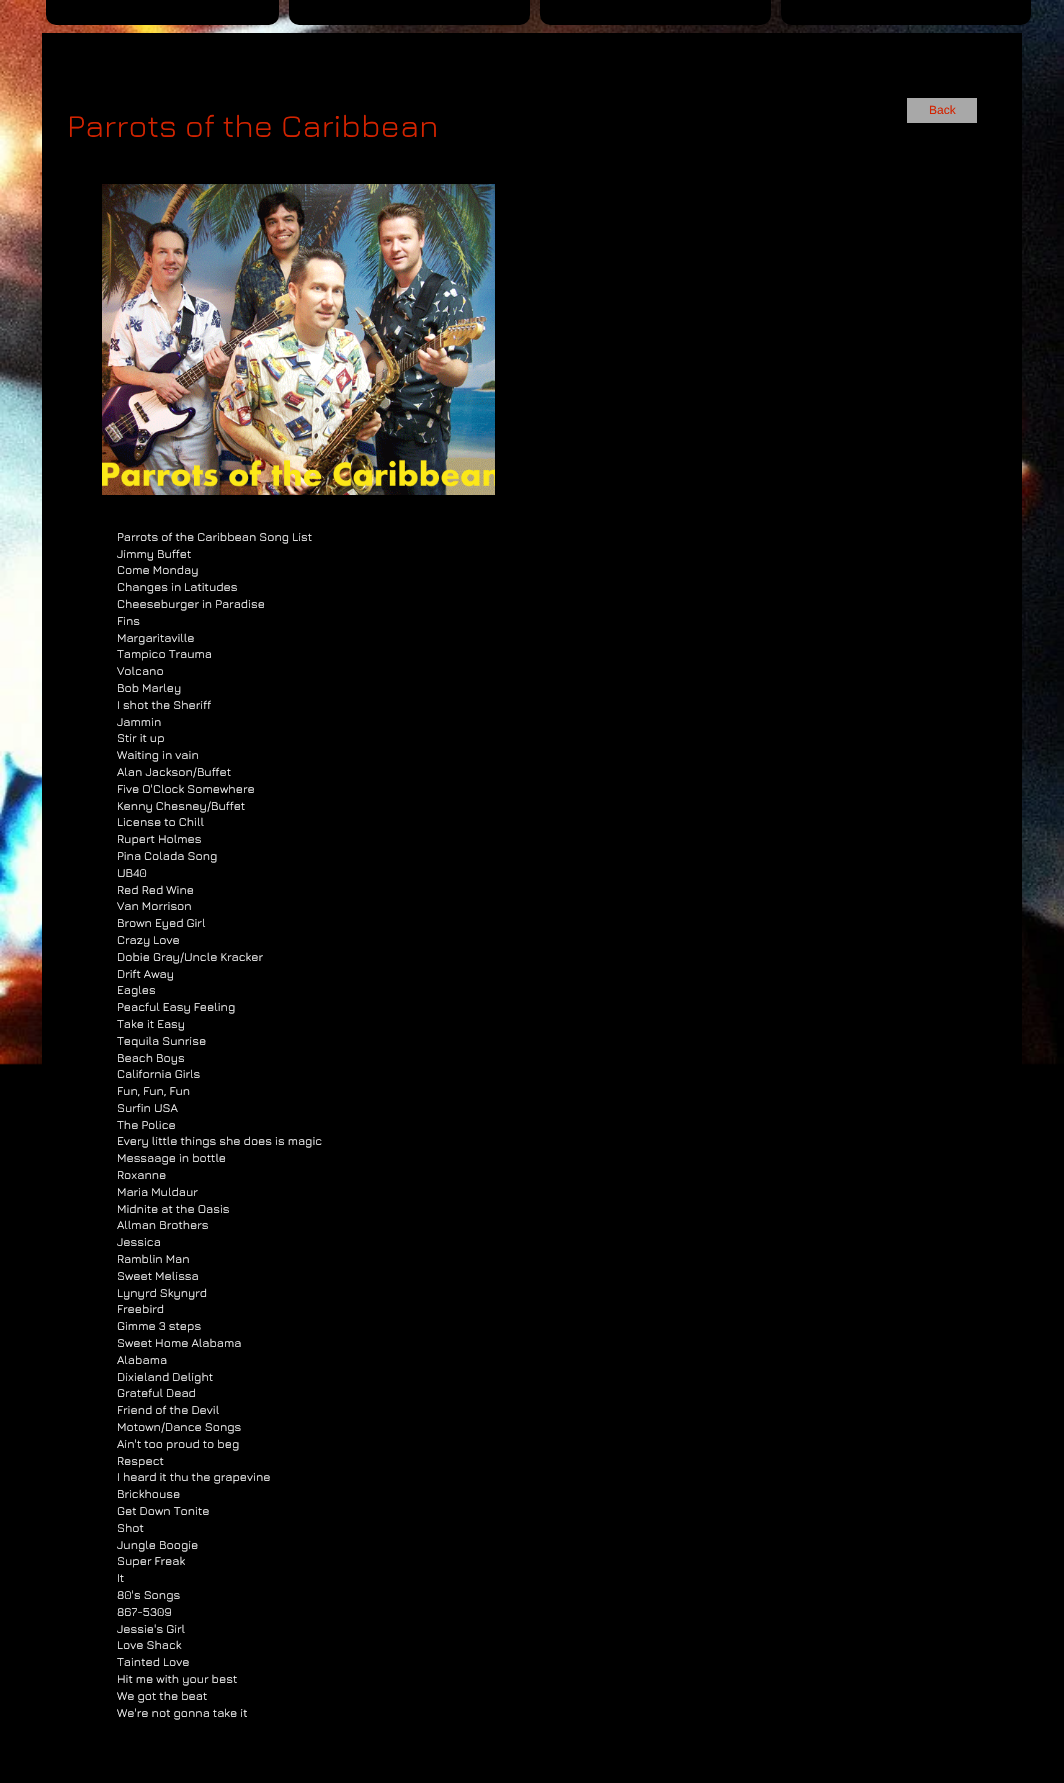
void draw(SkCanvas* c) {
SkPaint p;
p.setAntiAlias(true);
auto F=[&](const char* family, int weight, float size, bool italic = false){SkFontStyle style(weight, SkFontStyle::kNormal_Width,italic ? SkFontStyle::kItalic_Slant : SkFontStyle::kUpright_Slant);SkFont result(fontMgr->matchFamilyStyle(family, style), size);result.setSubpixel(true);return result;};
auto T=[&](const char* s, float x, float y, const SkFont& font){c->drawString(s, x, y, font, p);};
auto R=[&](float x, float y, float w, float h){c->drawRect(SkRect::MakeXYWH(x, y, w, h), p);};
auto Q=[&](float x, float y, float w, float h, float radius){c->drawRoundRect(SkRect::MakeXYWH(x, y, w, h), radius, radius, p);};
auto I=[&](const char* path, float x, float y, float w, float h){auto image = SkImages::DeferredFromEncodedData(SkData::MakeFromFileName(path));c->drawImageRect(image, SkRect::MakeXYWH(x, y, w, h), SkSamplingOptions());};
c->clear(0xff000000);
I("1.png",0,0,1064,1065);
p.setColor(0xff000000);
Q(46,-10,233,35,10);
Q(289,-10,241,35,10);
Q(540,-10,231,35,10);
Q(781,-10,250,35,10);
R(42,33,980,1032);
p.setColor(0xffa8a8a8);
R(907,98,70,25);
auto f1 = F("Liberation Sans",400,12);
p.setColor(0xffd32300);
T("Back",929,114,f1);
auto f2 = F("Jura",400,32);
T("Parrots of the Caribbean",67,137,f2);
I("2.png",102,184,393,311);
auto f3 = F("Jura",400,12);
p.setColor(0xffffffff);
T("Parrots of the Caribbean Song List",117,541,f3);
T("Jimmy Buffet",117,558,f3);
T("Come Monday",117,574,f3);
T("Changes in Latitudes",117,591,f3);
T("Cheeseburger in Paradise",117,608,f3);
T("Fins",117,625,f3);
T("Margaritaville",117,642,f3);
T("Tampico Trauma",117,658,f3);
T("Volcano",117,675,f3);
T("Bob Marley",117,692,f3);
T("I shot the Sheriff",117,709,f3);
T("Jammin",117,726,f3);
T("Stir it up",117,742,f3);
T("Waiting in vain",117,759,f3);
T("Alan Jackson/Buffet",117,776,f3);
T("Five O'Clock Somewhere",117,793,f3);
T("Kenny Chesney/Buffet",117,810,f3);
T("License to Chill",117,826,f3);
T("Rupert Holmes",117,843,f3);
T("Pina Colada Song",117,860,f3);
T("UB40",117,877,f3);
T("Red Red Wine",117,894,f3);
T("Van Morrison",117,910,f3);
T("Brown Eyed Girl",117,927,f3);
T("Crazy Love",117,944,f3);
T("Dobie Gray/Uncle Kracker",117,961,f3);
T("Drift Away",117,978,f3);
T("Eagles",117,994,f3);
T("Peacful Easy Feeling",117,1011,f3);
T("Take it Easy",117,1028,f3);
T("Tequila Sunrise",117,1045,f3);
T("Beach Boys",117,1062,f3);
T("California Girls",117,1078,f3);
T("Fun, Fun, Fun",117,1095,f3);
T("Surfin USA",117,1112,f3);
T("The Police",117,1129,f3);
T("Every little things she does is magic",117,1145,f3);
T("Messaage in bottle",117,1162,f3);
T("Roxanne",117,1179,f3);
T("Maria Muldaur",117,1196,f3);
T("Midnite at the Oasis",117,1213,f3);
T("Allman Brothers",117,1229,f3);
T("Jessica",117,1246,f3);
T("Ramblin Man",117,1263,f3);
T("Sweet Melissa",117,1280,f3);
T("Lynyrd Skynyrd",117,1297,f3);
T("Freebird",117,1313,f3);
T("Gimme 3 steps",117,1330,f3);
T("Sweet Home Alabama",117,1347,f3);
T("Alabama",117,1364,f3);
T("Dixieland Delight",117,1381,f3);
T("Grateful Dead",117,1397,f3);
T("Friend of the Devil",117,1414,f3);
T("Motown/Dance Songs",117,1431,f3);
T("Ain't too proud to beg",117,1448,f3);
T("Respect",117,1465,f3);
T("I heard it thu the grapevine",117,1481,f3);
T("Brickhouse",117,1498,f3);
T("Get Down Tonite",117,1515,f3);
T("Shot",117,1532,f3);
T("Jungle Boogie",117,1549,f3);
T("Super Freak",117,1565,f3);
T("It",117,1582,f3);
T("80's Songs",117,1599,f3);
T("867-5309",117,1616,f3);
T("Jessie's Girl",117,1633,f3);
T("Love Shack",117,1649,f3);
T("Tainted Love",117,1666,f3);
T("Hit me with your best",117,1683,f3);
T("We got the beat",117,1700,f3);
T("We're not gonna take it",117,1717,f3);
}
